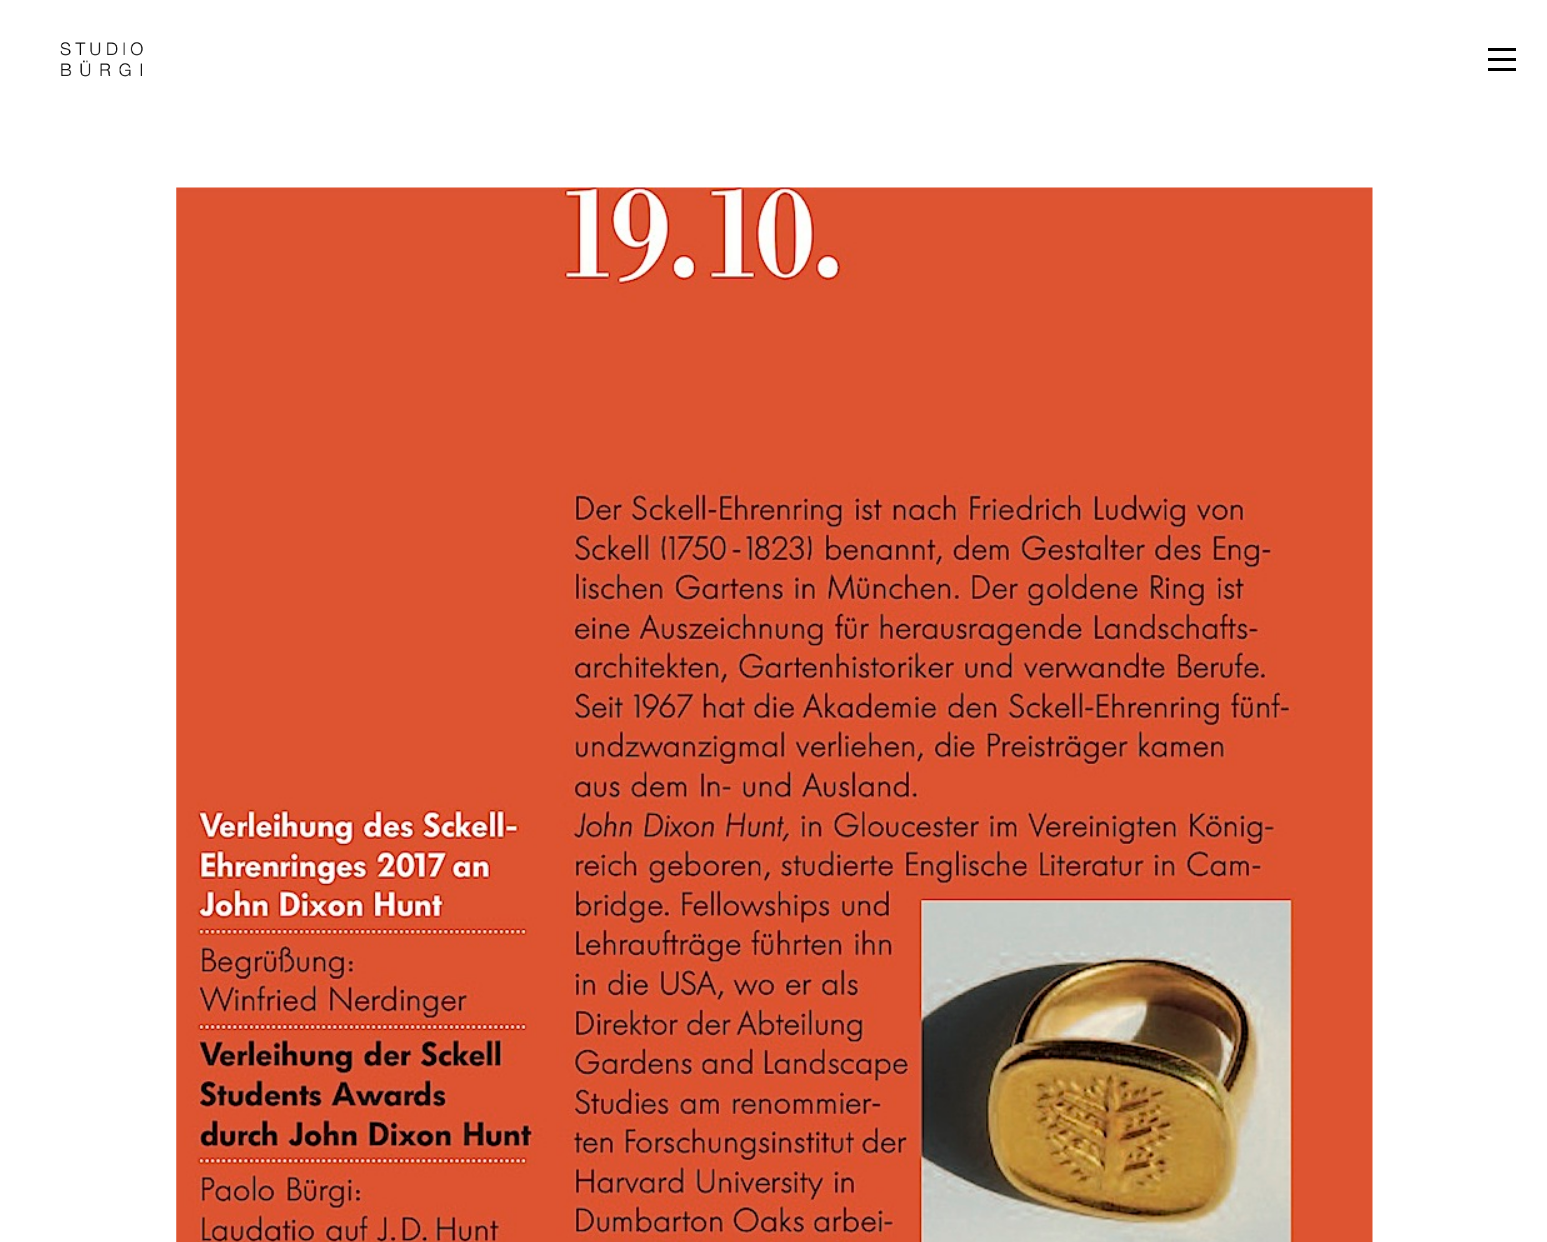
void draw(SkCanvas* c) {
SkPaint p;
p.setAntiAlias(true);
auto R=[&](float x, float y, float w, float h){c->drawRect(SkRect::MakeXYWH(x, y, w, h), p);};
auto I=[&](const char* path, float x, float y, float w, float h){auto image = SkImages::DeferredFromEncodedData(SkData::MakeFromFileName(path));c->drawImageRect(image, SkRect::MakeXYWH(x, y, w, h), SkSamplingOptions());};
c->clear(0xffffffff);
I("1.png",60,42,83,35);
p.setColor(0xff000000);
R(1488,58,28,3);
R(1488,48,28,3);
R(1488,68,28,3);
I("2.png",176,187,1197,1055);
}
